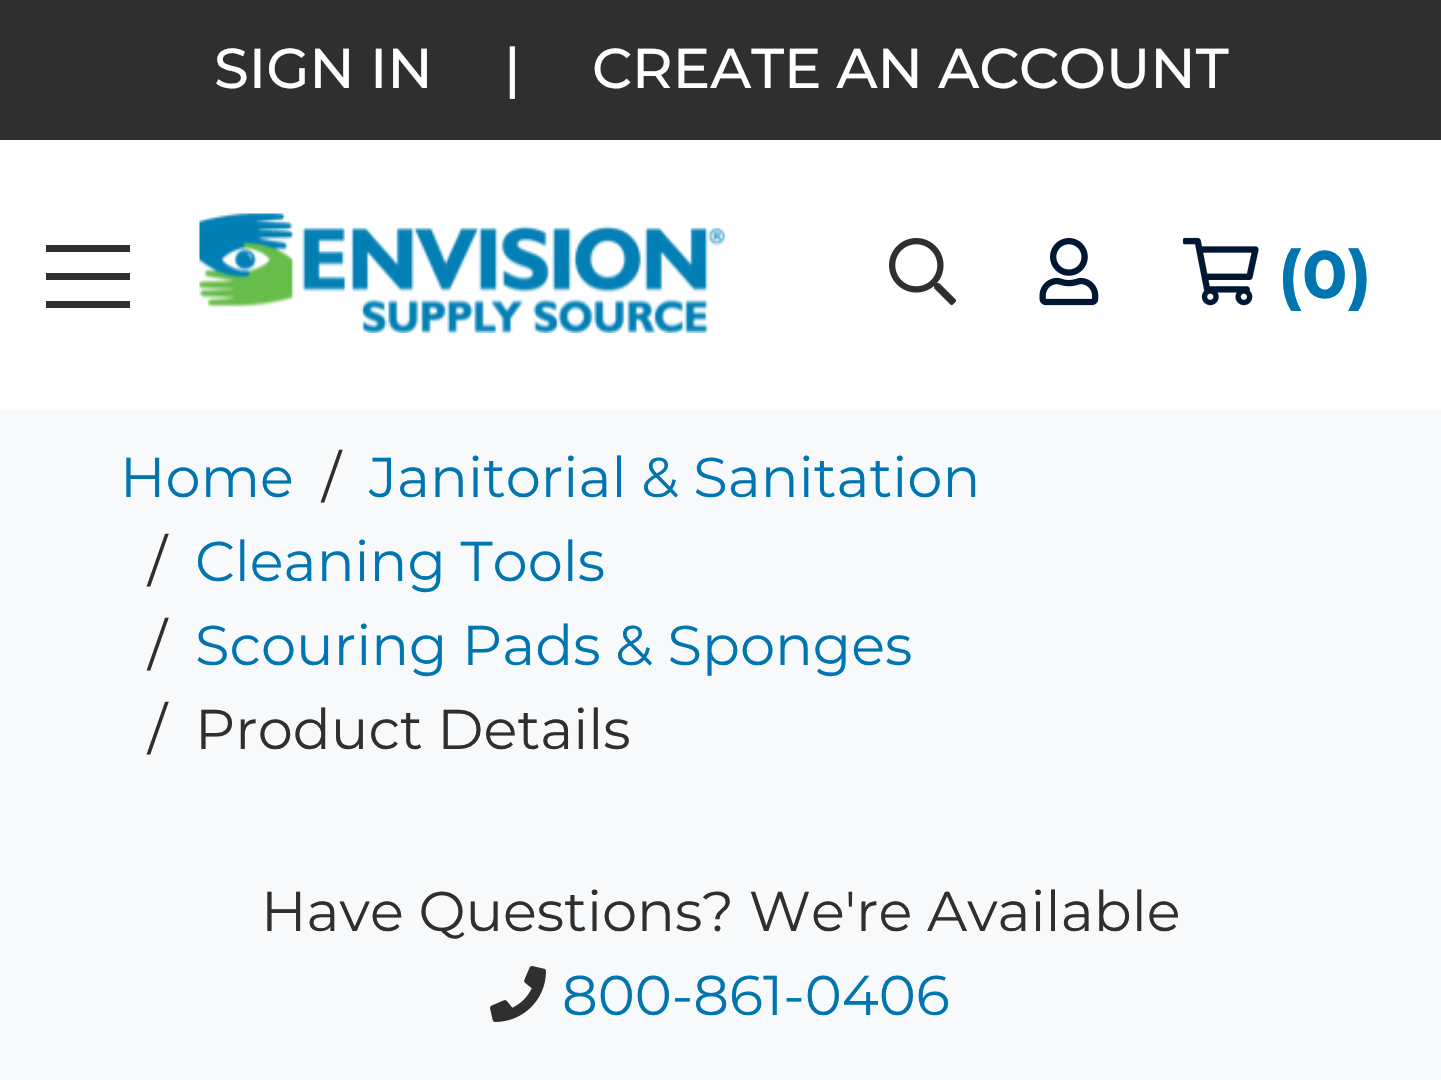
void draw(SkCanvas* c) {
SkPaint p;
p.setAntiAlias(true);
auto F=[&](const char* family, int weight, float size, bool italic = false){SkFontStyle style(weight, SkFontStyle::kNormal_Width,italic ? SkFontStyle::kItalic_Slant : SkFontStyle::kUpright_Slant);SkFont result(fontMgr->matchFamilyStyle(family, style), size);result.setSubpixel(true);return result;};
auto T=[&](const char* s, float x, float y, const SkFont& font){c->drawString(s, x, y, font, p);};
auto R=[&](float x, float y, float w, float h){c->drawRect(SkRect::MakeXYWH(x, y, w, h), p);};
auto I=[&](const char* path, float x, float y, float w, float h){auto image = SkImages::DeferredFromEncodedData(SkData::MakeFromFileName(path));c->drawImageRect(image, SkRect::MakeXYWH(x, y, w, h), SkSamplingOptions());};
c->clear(0xfff8f9fa);
p.setColor(0xffffffff);
R(0,140,1441,270);
p.setColor(0xff2f2f2f);
R(0,0,1441,140);
auto f1 = F("Montserrat",500,56);
p.setColor(0xffffffff);
T("SIGN IN",214,88,f1);
T("|",504,88,f1);
T("CREATE AN ACCOUNT",592,88,f1);
p.setColor(0xff2f2f2f);
R(46,273,84,7);
R(46,245,84,7);
R(46,301,84,7);
I("1.png",199,213,527,120);
I("2.png",889,238,68,68);
I("3.png",1039,238,60,68);
I("4.png",1182,237,77,69);
auto f2 = F("Montserrat",700,67);
p.setColor(0xff0075b0);
T("(0)",1278,298,f2);
auto f3 = F("Montserrat",400,56);
T("Home",120,497,f3);
p.setColor(0xff2f2f2f);
T("/",322,497,f3);
p.setColor(0xff0075b0);
T("Janitorial & Sanitation",369,497,f3);
p.setColor(0xff2f2f2f);
T("/",148,581,f3);
p.setColor(0xff0075b0);
T("Cleaning Tools",195,581,f3);
p.setColor(0xff2f2f2f);
T("/",148,665,f3);
p.setColor(0xff0075b0);
T("Scouring Pads & Sponges",195,665,f3);
p.setColor(0xff2f2f2f);
T("/",148,749,f3);
T("Product Details",195,749,f3);
T("Have Questions? We're Available",261,931,f3);
I("5.png",490,966,56,56);
p.setColor(0xff0075b0);
T("800-861-0406",562,1015,f3);
}
